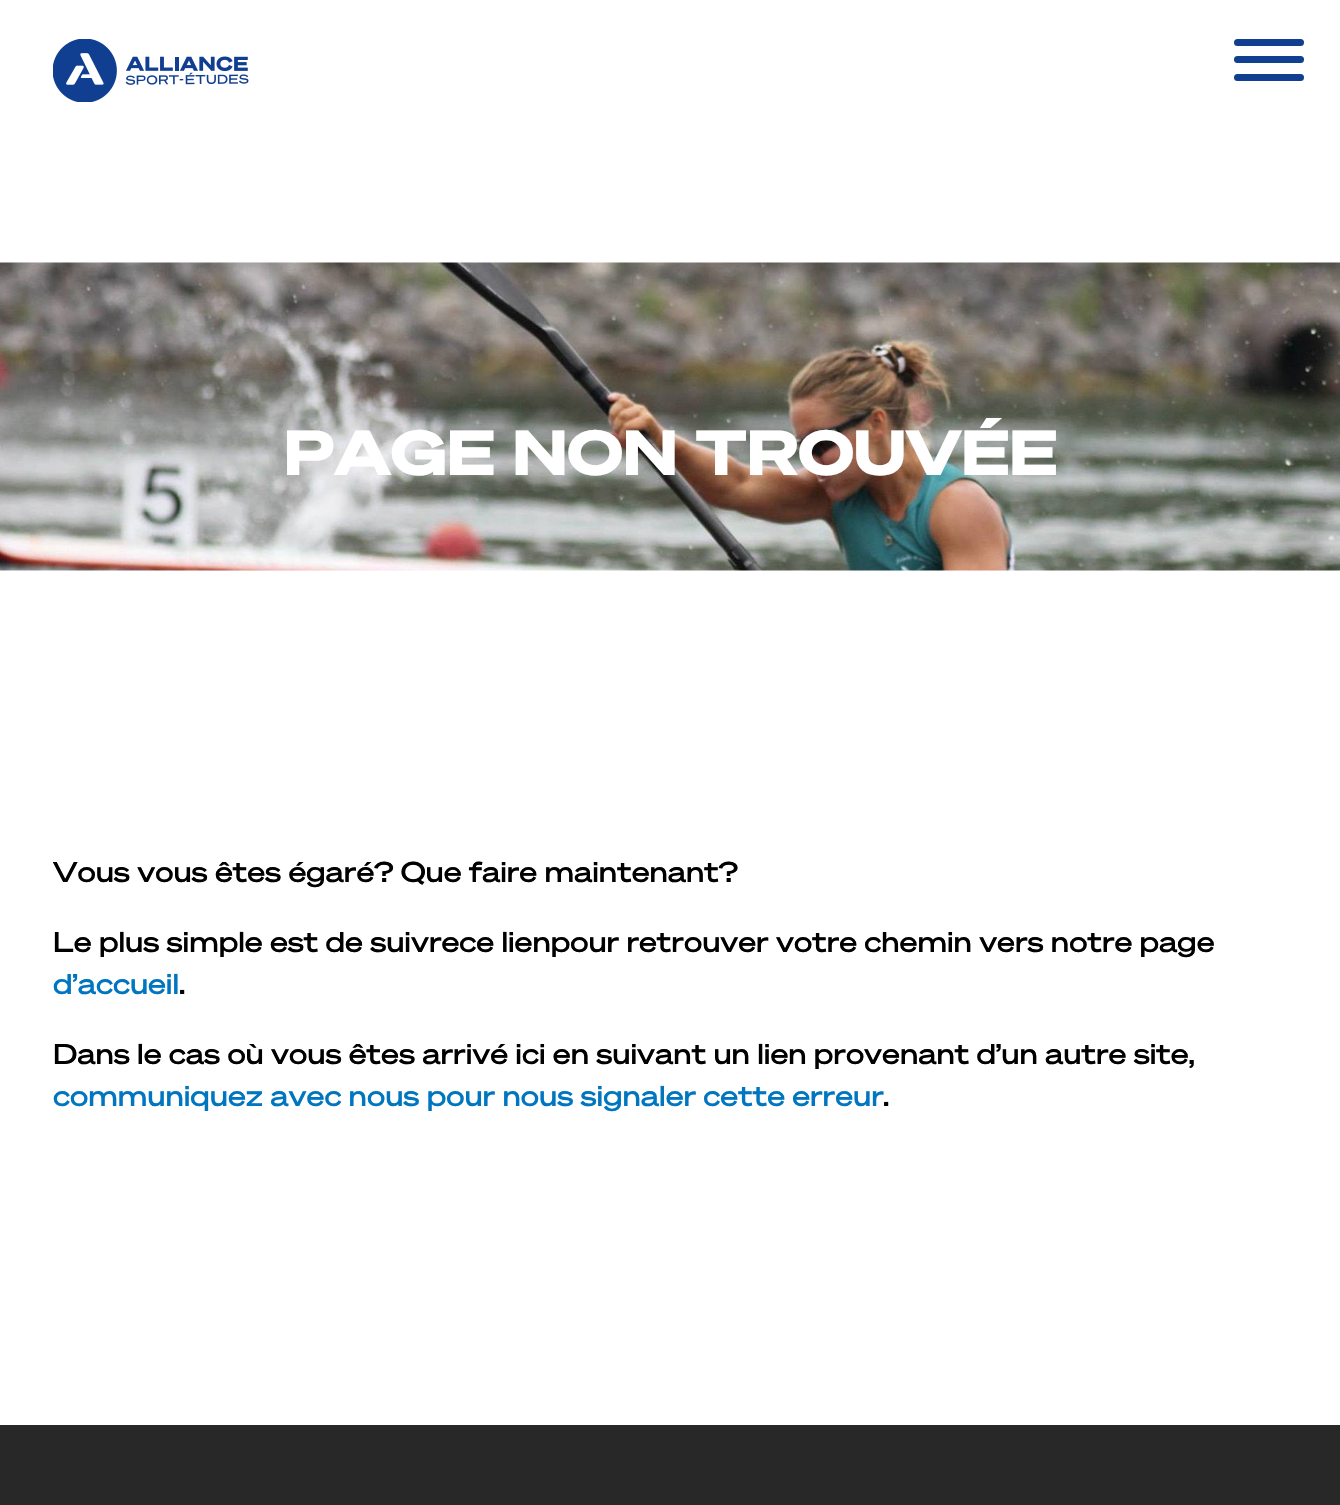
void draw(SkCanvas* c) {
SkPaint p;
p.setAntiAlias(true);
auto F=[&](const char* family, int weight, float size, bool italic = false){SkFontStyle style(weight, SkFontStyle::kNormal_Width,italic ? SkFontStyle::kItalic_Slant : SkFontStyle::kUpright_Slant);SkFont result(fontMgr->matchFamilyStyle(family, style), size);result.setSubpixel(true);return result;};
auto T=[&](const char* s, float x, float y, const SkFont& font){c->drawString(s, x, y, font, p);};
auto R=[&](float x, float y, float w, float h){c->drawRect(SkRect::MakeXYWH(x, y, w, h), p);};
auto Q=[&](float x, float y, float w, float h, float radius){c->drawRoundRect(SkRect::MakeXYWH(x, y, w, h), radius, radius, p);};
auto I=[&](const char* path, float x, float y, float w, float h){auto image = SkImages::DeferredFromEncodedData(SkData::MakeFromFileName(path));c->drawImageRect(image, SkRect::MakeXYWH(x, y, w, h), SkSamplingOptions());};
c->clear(0xffffffff);
I("1.png",53,39,196,63);
p.setColor(0xff103e90);
Q(1234,56,70,7,3.5);
Q(1234,39,70,7,3.5);
Q(1234,74,70,7,3.5);
I("2.png",0,262,1340,309);
auto f1 = F("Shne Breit",800,62.1);
p.setColor(0xffffffff);
T("PAGE NON TROUVÉE",284,475,f1);
auto f2 = F("Shne Breit",500,28);
p.setColor(0xff000000);
T("Vous vous êtes égaré? Que faire maintenant?",53,882,f2);
T("Le plus simple est de suivre ce lien pour retrouver votre chemin vers notre page",53,952,f2);
p.setColor(0xff0076c0);
T("d’accueil",53,994,f2);
p.setColor(0xff000000);
T(".",179,994,f2);
T("Dans le cas où vous êtes arrivé ici en suivant un lien provenant d’un autre site,",53,1064,f2);
p.setColor(0xff0076c0);
T("communiquez avec nous pour nous signaler cette erreur",53,1106,f2);
p.setColor(0xff000000);
T(".",883,1106,f2);
p.setColor(0xff282828);
R(0,1425,1340,80);
}
